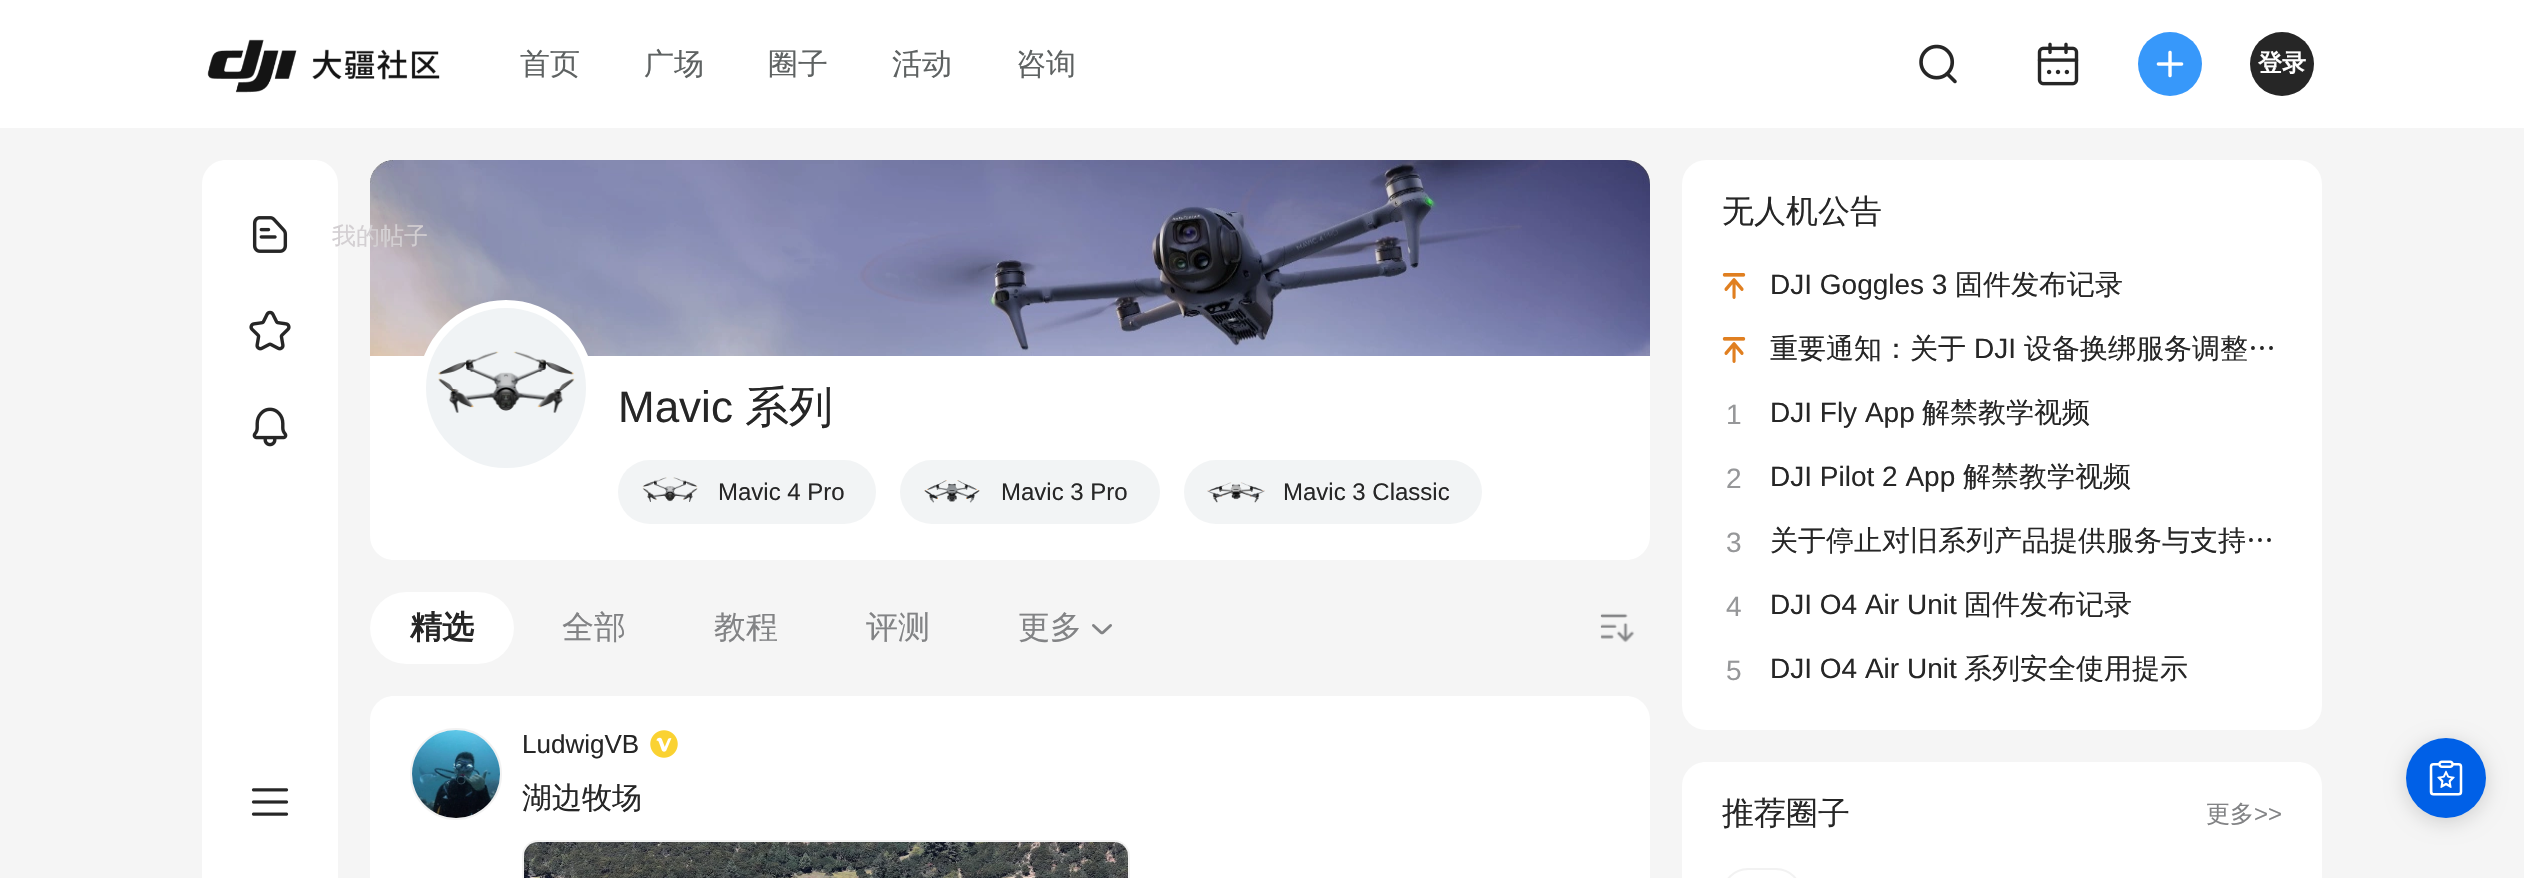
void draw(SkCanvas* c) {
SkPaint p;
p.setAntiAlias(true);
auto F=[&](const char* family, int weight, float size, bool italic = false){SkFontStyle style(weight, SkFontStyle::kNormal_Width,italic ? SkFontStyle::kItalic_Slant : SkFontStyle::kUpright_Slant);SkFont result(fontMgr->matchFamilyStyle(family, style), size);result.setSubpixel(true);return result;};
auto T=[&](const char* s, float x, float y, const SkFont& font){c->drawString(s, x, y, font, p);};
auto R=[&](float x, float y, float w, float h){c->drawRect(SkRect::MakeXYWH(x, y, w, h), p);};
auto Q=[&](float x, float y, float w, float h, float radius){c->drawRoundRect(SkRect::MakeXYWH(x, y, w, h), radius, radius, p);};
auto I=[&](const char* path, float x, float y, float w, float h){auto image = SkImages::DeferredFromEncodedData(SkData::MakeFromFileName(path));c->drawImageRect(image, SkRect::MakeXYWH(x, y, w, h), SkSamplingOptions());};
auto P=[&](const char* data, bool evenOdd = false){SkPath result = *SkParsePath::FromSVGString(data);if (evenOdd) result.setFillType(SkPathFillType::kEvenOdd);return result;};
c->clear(0xfff5f5f5);
p.setColor(0xffffffff);
R(0,0,2524,128);
I("1.png",207,39,233,54);
auto f1 = F("WenQuanYi Zen Hei",500,30);
p.setColor(0xff5e6262);
T("首页",520,74,f1);
T("广场",644,74,f1);
T("圈子",768,74,f1);
T("活动",892,74,f1);
T("咨询",1016,74,f1);
I("2.png",1919,44,38,40);
I("3.png",2037,42,42,44);
p.setColor(0xff3798fa);
c->drawCircle(2170,64,32,p);
I("4.png",2156,50,28,28);
p.setColor(0xff262626);
c->drawCircle(2282,64,32,p);
auto f2 = F("WenQuanYi Zen Hei",700,24);
p.setColor(0xffffffff);
T("登录",2258,71,f2);
c->drawPath(P("M226 160h88c13.5 0 24 10.5 24 24v694h-136v-694c0-13.5 10.5-24 24-24z"),p);
I("5.png",252,216,36,37);
I("10.png",370,160,1280,196);
auto f3 = F("WenQuanYi Zen Hei",500,24);
p.setColor(0xffd3cfd2);
T("我的帖子",332,244,f3);
I("6.png",249,310,42,41);
I("7.png",252,407,36,40);
I("8.png",251,788,38,28);
p.setColor(0xffffffff);
Q(1682,160,640,570,24);
auto f4 = F("WenQuanYi Zen Hei",500,32);
p.setColor(0xff262626);
T("无人机公告",1722,222,f4);
I("9.png",1722,273,24,26);
auto f5 = F("Liberation Sans",400,28);
T("DJI Goggles 3",1770,294,f5);
auto f6 = F("WenQuanYi Zen Hei",500,28);
T("固件发布记录",1955,294,f6);
I("9.png",1722,337,24,26);
T("重要通知：关于",1770,358,f6);
T("DJI",1974,358,f5);
T("设备换绑服务调整…",2024,358,f6);
p.setColor(0xff969799);
T("1",1726,424,f5);
p.setColor(0xff262626);
T("DJI Fly App",1770,422,f5);
T("解禁教学视频",1922,422,f6);
p.setColor(0xff969799);
T("2",1726,488,f5);
p.setColor(0xff262626);
T("DJI Pilot 2 App",1770,486,f5);
T("解禁教学视频",1963,486,f6);
p.setColor(0xff969799);
T("3",1726,552,f5);
p.setColor(0xff262626);
T("关于停止对旧系列产品提供服务与支持…",1770,550,f6);
p.setColor(0xff969799);
T("4",1726,616,f5);
p.setColor(0xff262626);
T("DJI O4 Air Unit",1770,614,f5);
T("固件发布记录",1964,614,f6);
p.setColor(0xff969799);
T("5",1726,680,f5);
p.setColor(0xff262626);
T("DJI O4 Air Unit",1770,678,f5);
T("系列安全使用提示",1964,678,f6);
p.setColor(0xffffffff);
c->drawPath(P("M1706 762h592c13.5 0 24 10.5 24 24v92h-640v-92c0-13.5 10.5-24 24-24z"),p);
p.setColor(0xff262626);
T("推荐圈子",1722,824,f4);
p.setColor(0xff828385);
T("更多",2206,822,f3);
auto f7 = F("Liberation Sans",400,24);
T(">>",2254,822,f7);
p.setStroke(true);
p.setStrokeWidth(2);
p.setColor(0xfff2f2f2);
c->drawRoundRect(SkRect::MakeXYWH(1723,869,78,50),39,39,p);
p.setStroke(false);
p.setColor(0xffffffff);
c->drawPath(P("M370 356h1280v180c0 13.5-10.5 24-24 24h-1232c-13.5 0-24-10.5-24-24z"),p);
p.setColor(0xfff0f3f5);
c->drawCircle(506,388,84,p);
p.setStroke(true);
p.setStrokeWidth(8);
p.setColor(0xffffffff);
c->drawCircle(506,388,84,p);
I("11.png",438,351,137,62);
auto f8 = F("Liberation Sans",400,44);
p.setStroke(false);
p.setColor(0xff262626);
T("Mavic",618,422,f8);
auto f9 = F("WenQuanYi Zen Hei",500,44);
T("系列",745,422,f9);
p.setColor(0xfff2f4f5);
Q(618,460,258,64,32);
I("12.png",642,477,56,25);
p.setColor(0xff262626);
T("Mavic 4 Pro",718,500,f7);
p.setColor(0xfff2f4f5);
Q(900,460,260,64,32);
I("13.png",924,480,56,23);
p.setColor(0xff262626);
T("Mavic 3 Pro",1001,500,f7);
p.setColor(0xfff2f4f5);
Q(1184,460,298,64,32);
I("14.png",1207,482,58,21);
p.setColor(0xff262626);
T("Mavic 3 Classic",1283,500,f7);
p.setColor(0xffffffff);
Q(370,592,144,72,36);
auto f10 = F("WenQuanYi Zen Hei",700,32);
p.setColor(0xff262626);
T("精选",410,638,f10);
p.setColor(0xff828385);
T("全部",562,638,f4);
T("教程",714,638,f4);
T("评测",866,638,f4);
T("更多",1018,638,f4);
I("15.png",1092,624,20,11);
I("16.png",1600,613,35,30);
p.setColor(0xffffffff);
c->drawPath(P("M394 696h1232c13.5 0 24 10.5 24 24v158h-1280v-158c0-13.5 10.5-24 24-24z"),p);
p.setStroke(true);
p.setStrokeWidth(2);
p.setColor(0xfff2f2f2);
c->drawCircle(456,774,45,p);
I("17.png",412,730,88,88);
auto f11 = F("Liberation Sans",400,26);
p.setStroke(false);
p.setColor(0xff262626);
T("LudwigVB",522,753,f11);
I("18.png",650,730,28,28);
T("湖边牧场",522,808,f1);
p.setStroke(true);
p.setColor(0xfff2f2f2);
c->drawRoundRect(SkRect::MakeXYWH(523,841,606,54),15,15,p);
I("19.png",524,842,604,36);
p.setStroke(false);
p.setColor(0x29000000);
p.setMaskFilter(SkMaskFilter::MakeBlur(kNormal_SkBlurStyle, 10));
c->drawRoundRect(SkRect::MakeXYWH(2406,742,80,80),40,40,p);
p.setMaskFilter(nullptr);
p.setColor(0xff0060e7);
c->drawCircle(2446,778,40,p);
I("20.png",2429,760,34,36);
}
